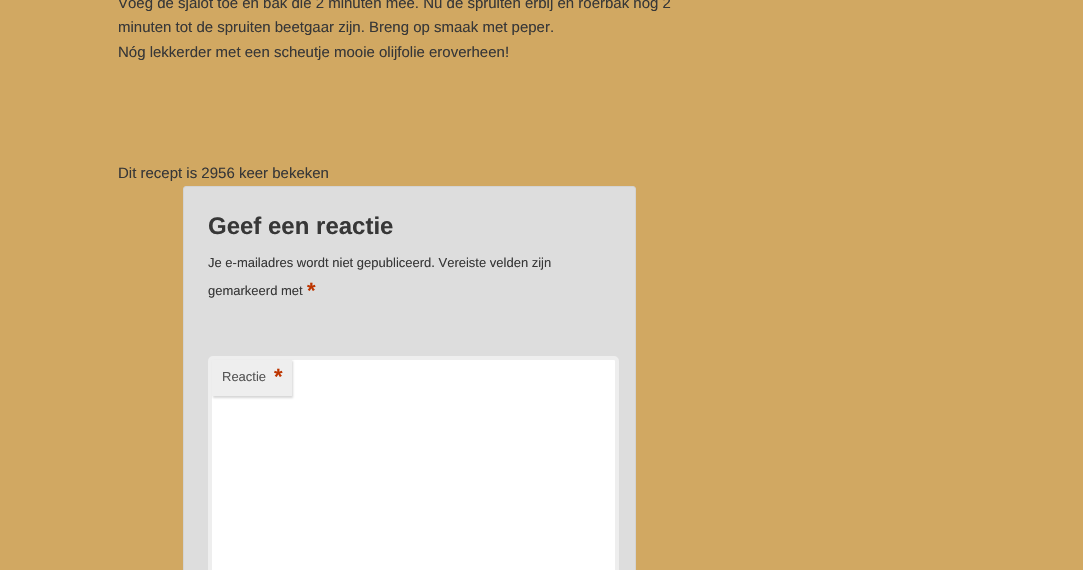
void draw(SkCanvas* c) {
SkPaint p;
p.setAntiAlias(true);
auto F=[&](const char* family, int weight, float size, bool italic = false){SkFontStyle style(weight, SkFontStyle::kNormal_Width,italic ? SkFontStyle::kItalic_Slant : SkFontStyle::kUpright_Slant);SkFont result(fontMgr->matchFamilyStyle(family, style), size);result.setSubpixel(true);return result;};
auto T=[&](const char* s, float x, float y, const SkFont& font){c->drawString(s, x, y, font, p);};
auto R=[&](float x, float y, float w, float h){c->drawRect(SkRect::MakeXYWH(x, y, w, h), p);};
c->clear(0xffd1a862);
auto f1 = F("Liberation Sans",400,15);
p.setColor(0xff373737);
T("Voeg de sjalot toe en bak die 2 minuten mee. Nu de spruiten erbij en roerbak nog 2",118,8,f1);
T("minuten tot de spruiten beetgaar zijn. Breng op smaak met peper.",118,32,f1);
T("Nóg lekkerder met een scheutje mooie olijfolie eroverheen!",118,57,f1);
T("Dit recept is 2956 keer bekeken",118,178,f1);
p.setColor(0xffdddddd);
c->drawRoundRect(SkRect::MakeXYWH(183.5,186.5,452,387),2.5,2.5,p);
p.setStroke(true);
p.setStrokeWidth(1);
p.setColor(0xffd3d3d3);
c->drawRoundRect(SkRect::MakeXYWH(183.5,186.5,452,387),2.5,2.5,p);
auto f2 = F("Liberation Sans",700,24);
p.setStroke(false);
p.setColor(0xff373737);
T("Geef een reactie",208,234,f2);
auto f3 = F("Liberation Sans",400,13);
T("Je e-mailadres wordt niet gepubliceerd. Vereiste velden zijn",208,267,f3);
T("gemarkeerd met",208,295,f3);
auto f4 = F("Liberation Sans",700,22);
p.setColor(0xffbd3500);
T("*",307,298,f4);
p.setColor(0xffffffff);
c->drawRoundRect(SkRect::MakeXYWH(210,358,407,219),3,3,p);
p.setStroke(true);
p.setStrokeWidth(4);
p.setColor(0xffeeeeee);
c->drawRoundRect(SkRect::MakeXYWH(210,358,407,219),3,3,p);
p.setStroke(false);
p.setColor(0xcccccccc);
p.setMaskFilter(SkMaskFilter::MakeBlur(kNormal_SkBlurStyle, 1));
c->drawRect(SkRect::MakeXYWH(213,361,80,37),p);
p.setMaskFilter(nullptr);
p.setColor(0xffeeeeee);
R(212,360,80,36);
p.setColor(0xff555555);
T("Reactie",222,381,f3);
p.setColor(0xffbd3500);
T("*",274,384,f4);
}
